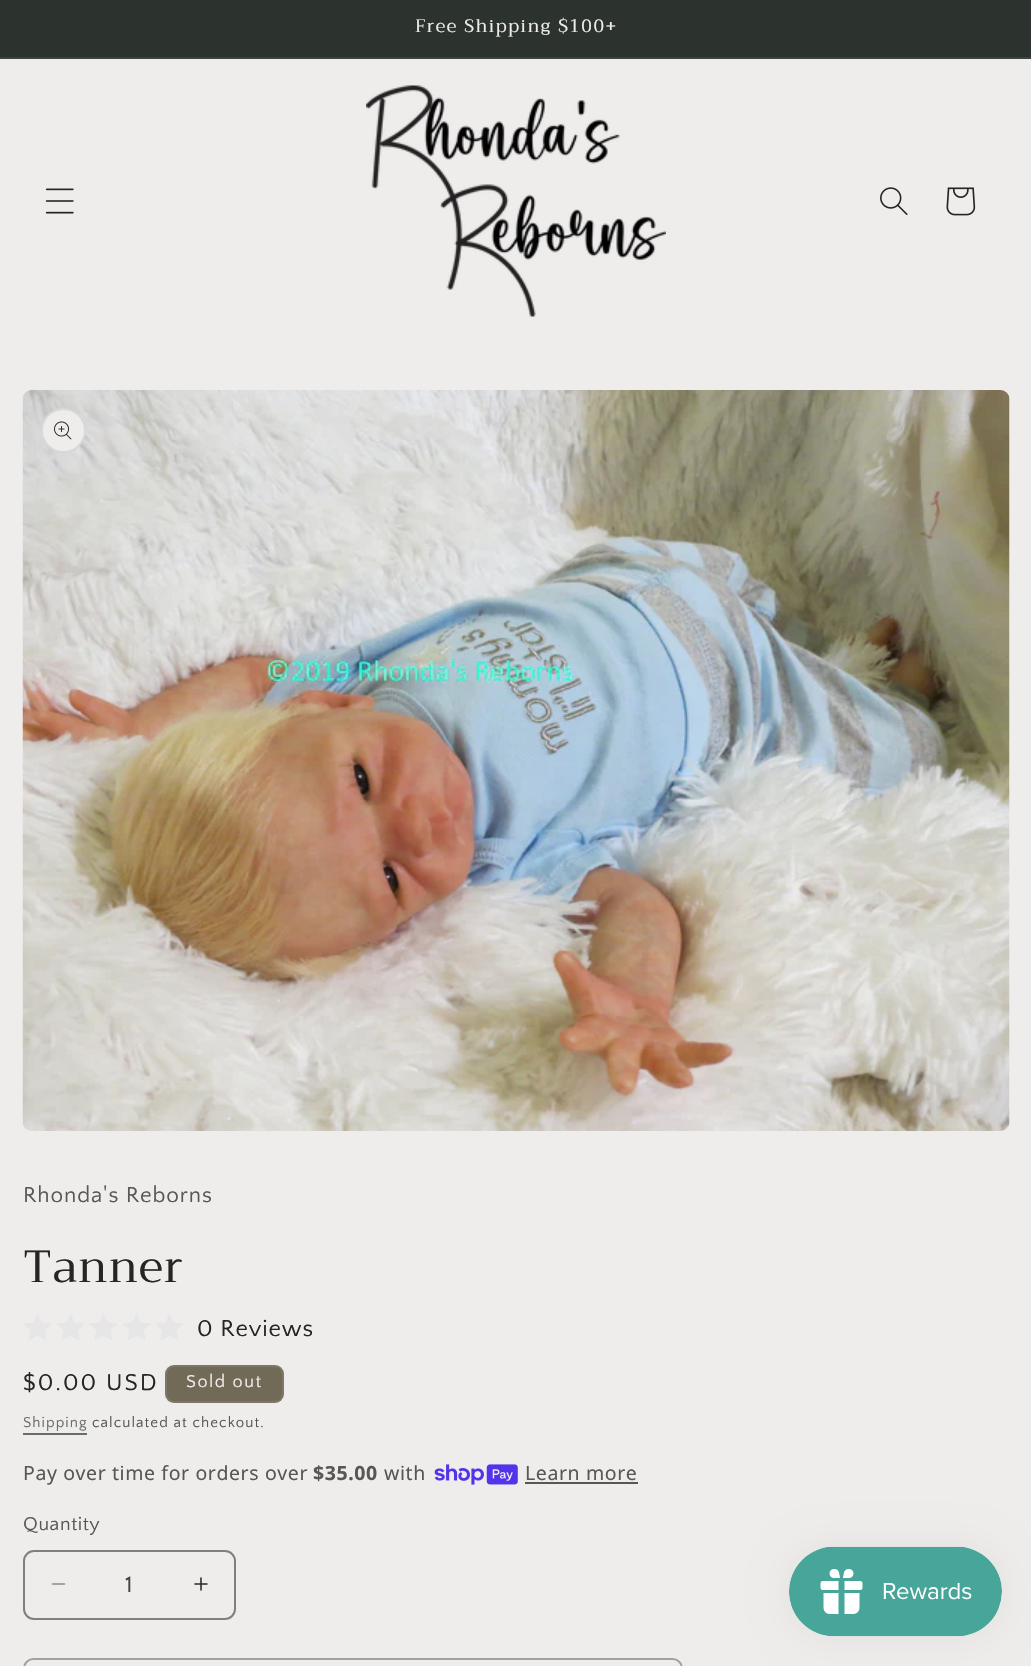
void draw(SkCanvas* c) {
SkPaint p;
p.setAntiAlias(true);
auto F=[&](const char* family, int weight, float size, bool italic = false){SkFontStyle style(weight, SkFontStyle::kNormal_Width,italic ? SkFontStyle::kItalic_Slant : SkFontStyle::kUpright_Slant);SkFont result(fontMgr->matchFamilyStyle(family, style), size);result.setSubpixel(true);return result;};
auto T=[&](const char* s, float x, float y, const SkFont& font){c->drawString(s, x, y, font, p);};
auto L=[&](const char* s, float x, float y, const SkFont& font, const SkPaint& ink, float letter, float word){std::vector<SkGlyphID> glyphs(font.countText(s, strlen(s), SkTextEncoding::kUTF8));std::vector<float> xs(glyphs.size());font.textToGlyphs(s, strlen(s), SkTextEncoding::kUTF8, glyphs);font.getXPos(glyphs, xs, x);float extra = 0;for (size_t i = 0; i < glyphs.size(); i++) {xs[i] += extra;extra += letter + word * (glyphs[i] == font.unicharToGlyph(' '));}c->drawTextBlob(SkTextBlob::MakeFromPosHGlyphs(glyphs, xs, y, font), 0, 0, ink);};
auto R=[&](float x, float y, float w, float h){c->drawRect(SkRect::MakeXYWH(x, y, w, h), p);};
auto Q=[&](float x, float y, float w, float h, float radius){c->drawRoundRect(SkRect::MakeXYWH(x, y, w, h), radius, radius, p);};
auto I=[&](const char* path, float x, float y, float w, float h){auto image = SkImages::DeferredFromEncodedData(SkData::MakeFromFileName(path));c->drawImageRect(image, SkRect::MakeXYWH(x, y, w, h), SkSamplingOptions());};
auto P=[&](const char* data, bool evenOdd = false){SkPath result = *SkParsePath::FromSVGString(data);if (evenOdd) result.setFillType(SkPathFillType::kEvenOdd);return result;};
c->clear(0xffefecec);
p.setColor(0xff2c332f);
R(0,0,1031,57);
p.setColor(0xff3c423e);
R(0,57,1031,2);
auto f1 = F("Trirong",400,18);
p.setColor(0xffefecec);
L("Free Shipping $100+",415,32,f1,p,1.5,0);
I("1.png",45,188,29,26);
I("2.png",366,85,300,232);
I("3.png",880,187,28,28);
I("4.png",946,187,30,29);
I("5.png",22,390,988,741);
c->drawCircle(63.5,430.5,22.5,p);
p.setStroke(true);
p.setStrokeWidth(2);
p.setColor(0x1a252525);
c->drawCircle(63.5,430.5,21.5,p);
I("6.png",54,421,18,19);
auto f2 = F("Quattrocento Sans",400,22.5);
p.setStroke(false);
p.setColor(0xff585757);
L("Rhonda's Reborns",23,1202,f2,p,.9,0);
auto f3 = F("Trirong",400,45);
p.setColor(0xff252525);
L("Tanner",23,1282,f3,p,.9,0);
p.setColor(0xffe6e6e6);
c->drawPath(P("M37.5 1313l4 9.5l10.5 1l-7.5 7l2 10l-9-5l-9 5l2-10l-7.5-7l10.5-1zm33 0l4 9.5l10.5 1l-7.5 7l2 10l-9-5l-9 5l2-10l-7.5-7l10.5-1z"),p);
c->drawPath(P("M103.5 1313l4 9.5l10.5 1l-7.5 7l2 10l-9-5l-9 5l2-10l-7.5-7l10.5-1zm33 0l4 9.5l10.5 1l-7.5 7l2 10l-9-5l-9 5l2-10l-7.5-7l10.5-1z"),p);
c->drawPath(P("M169.5 1313l4 9.5l10.5 1l-7.5 7l2 10l-9-5l-9 5l2-10l-7.5-7l10.5-1z"),p);
auto f4 = F("Quattrocento Sans",400,24);
p.setColor(0xff252525);
L("0 Reviews",197,1336,f4,p,.9,0);
L("$0.00 USD",23,1390,f4,p,2,0);
p.setColor(0xff716a56);
Q(165,1365,119,38,9);
p.setStroke(true);
p.setColor(0x1aefecec);
c->drawRoundRect(SkRect::MakeXYWH(166,1366,117,36),8,8,p);
auto f5 = F("Quattrocento Sans",400,18);
p.setStroke(false);
p.setColor(0xffefecec);
L("Sold out",186,1387,f5,p,1.5,0);
auto f6 = F("Quattrocento Sans",400,15);
p.setColor(0xff686d6c);
L("Shipping",23,1427,f6,p,1.05,0);
R(23,1433,64,2);
p.setColor(0xff585757);
L("calculated at checkout.",92,1427,f6,p,1.05,0);
auto f7 = F("Noto Sans",400,19.5);
L("Pay over time for orders over",23,1480,f7,p,.6,0);
auto f8 = F("Noto Sans",700,19.5);
L("$35.00",313,1480,f8,p,.6,0);
L("with",384,1480,f7,p,.6,0);
I("7.png",434,1464,84,21);
L("Learn more",525,1480,f7,p,.6,0);
R(525,1482,113,2);
auto f9 = F("Quattrocento Sans",400,19.5);
L("Quantity",23,1530,f9,p,.6,0);
I("8.png",51,1583,15,2);
I("9.png",194,1577,14,14);
p.setStroke(true);
p.setColor(0xff807f7f);
c->drawRoundRect(SkRect::MakeXYWH(24,1551,211,68),10,10,p);
p.setStroke(false);
p.setColor(0xff434343);
T("1",125,1592,f4);
p.setStroke(true);
p.setColor(0xffa0a1a1);
c->drawRoundRect(SkRect::MakeXYWH(24,1659,658,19),10,10,p);
p.setStroke(false);
p.setColor(0x0d000000);
p.setMaskFilter(SkMaskFilter::MakeBlur(kNormal_SkBlurStyle, 19));
c->drawRoundRect(SkRect::MakeXYWH(789,1547,213,90),45,45,p);
p.setMaskFilter(nullptr);
I("10.png",789,1546,213,91);
}
